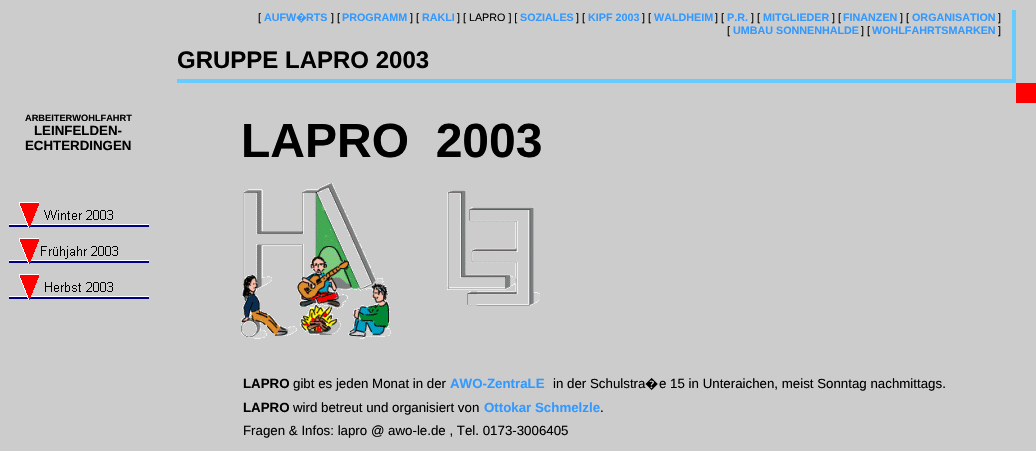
void draw(SkCanvas* c) {
SkPaint p;
p.setAntiAlias(true);
auto F=[&](const char* family, int weight, float size, bool italic = false){SkFontStyle style(weight, SkFontStyle::kNormal_Width,italic ? SkFontStyle::kItalic_Slant : SkFontStyle::kUpright_Slant);SkFont result(fontMgr->matchFamilyStyle(family, style), size);result.setSubpixel(true);return result;};
auto T=[&](const char* s, float x, float y, const SkFont& font){c->drawString(s, x, y, font, p);};
auto R=[&](float x, float y, float w, float h){c->drawRect(SkRect::MakeXYWH(x, y, w, h), p);};
auto I=[&](const char* path, float x, float y, float w, float h){auto image = SkImages::DeferredFromEncodedData(SkData::MakeFromFileName(path));c->drawImageRect(image, SkRect::MakeXYWH(x, y, w, h), SkSamplingOptions());};
c->clear(0xffcccccc);
auto f1 = F("Liberation Sans",400,10.75);
p.setColor(0xff000000);
T("[",258,21,f1);
auto f2 = F("Liberation Sans",700,10.75);
p.setColor(0xff3399ff);
T("AUFW",264,21,f2);
auto f3 = F("Noto Sans",700,10.75);
T("�",296,21,f3);
T("RTS",306,21,f2);
p.setColor(0xff000000);
T("] [",331,21,f1);
p.setColor(0xff3399ff);
T("PROGRAMM",342,21,f2);
p.setColor(0xff000000);
T("] [",410,21,f1);
p.setColor(0xff3399ff);
T("RAKLI",422,21,f2);
p.setColor(0xff000000);
T("] [ LAPRO ] [",457,21,f1);
p.setColor(0xff3399ff);
T("SOZIALES",520,21,f2);
p.setColor(0xff000000);
T("] [",576,21,f1);
p.setColor(0xff3399ff);
T("KIPF 2003",588,21,f2);
p.setColor(0xff000000);
T("] [",642,21,f1);
p.setColor(0xff3399ff);
T("WALDHEIM",654,21,f2);
p.setColor(0xff000000);
T("] [",715,21,f1);
p.setColor(0xff3399ff);
T("P.R.",727,21,f2);
p.setColor(0xff000000);
T("] [",751,21,f1);
p.setColor(0xff3399ff);
T("MITGLIEDER",763,21,f2);
p.setColor(0xff000000);
T("] [",832,21,f1);
p.setColor(0xff3399ff);
T("FINANZEN",843,21,f2);
p.setColor(0xff000000);
T("] [",900,21,f1);
p.setColor(0xff3399ff);
T("ORGANISATION",912,21,f2);
p.setColor(0xff000000);
T("]",998,21,f1);
T("[",727,34,f1);
p.setColor(0xff3399ff);
T("UMBAU SONNENHALDE",733,34,f2);
p.setColor(0xff000000);
T("] [",861,34,f1);
p.setColor(0xff3399ff);
T("WOHLFAHRTSMARKEN",872,34,f2);
p.setColor(0xff000000);
T("]",998,34,f1);
p.setColor(0xff66ccff);
R(1012,10,4,69);
auto f4 = F("Liberation Sans",700,24);
p.setColor(0xff000000);
T("GRUPPE LAPRO 2003",177,68,f4);
p.setColor(0xff66ccff);
R(177,79,839,4);
p.setColor(0xffff0000);
R(1016,83,20,20);
auto f5 = F("Liberation Sans",700,9.25);
p.setColor(0xff000000);
T("ARBEITERWOHLFAHRT",25,121,f5);
auto f6 = F("Liberation Sans",700,13.3);
T("LEINFELDEN-",34,135,f6);
T("ECHTERDINGEN",25,150,f6);
I("1.png",9,202,140,26);
I("2.png",9,238,140,26);
I("3.png",9,274,140,26);
auto f7 = F("Liberation Sans",700,48);
T("LAPRO  2003",241,157,f7);
I("4.png",241,183,299,156);
T("LAPRO",243,388,f6);
auto f8 = F("Liberation Sans",400,13.3);
T("gibt es jeden Monat in der",293,388,f8);
p.setColor(0xff3399ff);
T("AWO-ZentraLE",450,388,f6);
p.setColor(0xff000000);
T("in der Schulstra",553,388,f8);
auto f9 = F("Noto Sans",400,13.3);
T("�",645,388,f9);
T("e 15 in Unteraichen, meist Sonntag nachmittags.",659,388,f8);
T("LAPRO",243,412,f6);
T("wird betreut und organisiert von",293,412,f8);
p.setColor(0xff3399ff);
T("Ottokar Schmelzle",484,412,f6);
p.setColor(0xff000000);
T(".",600,412,f8);
T("Fragen & Infos: lapro @ awo-le.de , Tel. 0173-3006405",243,435,f8);
}
